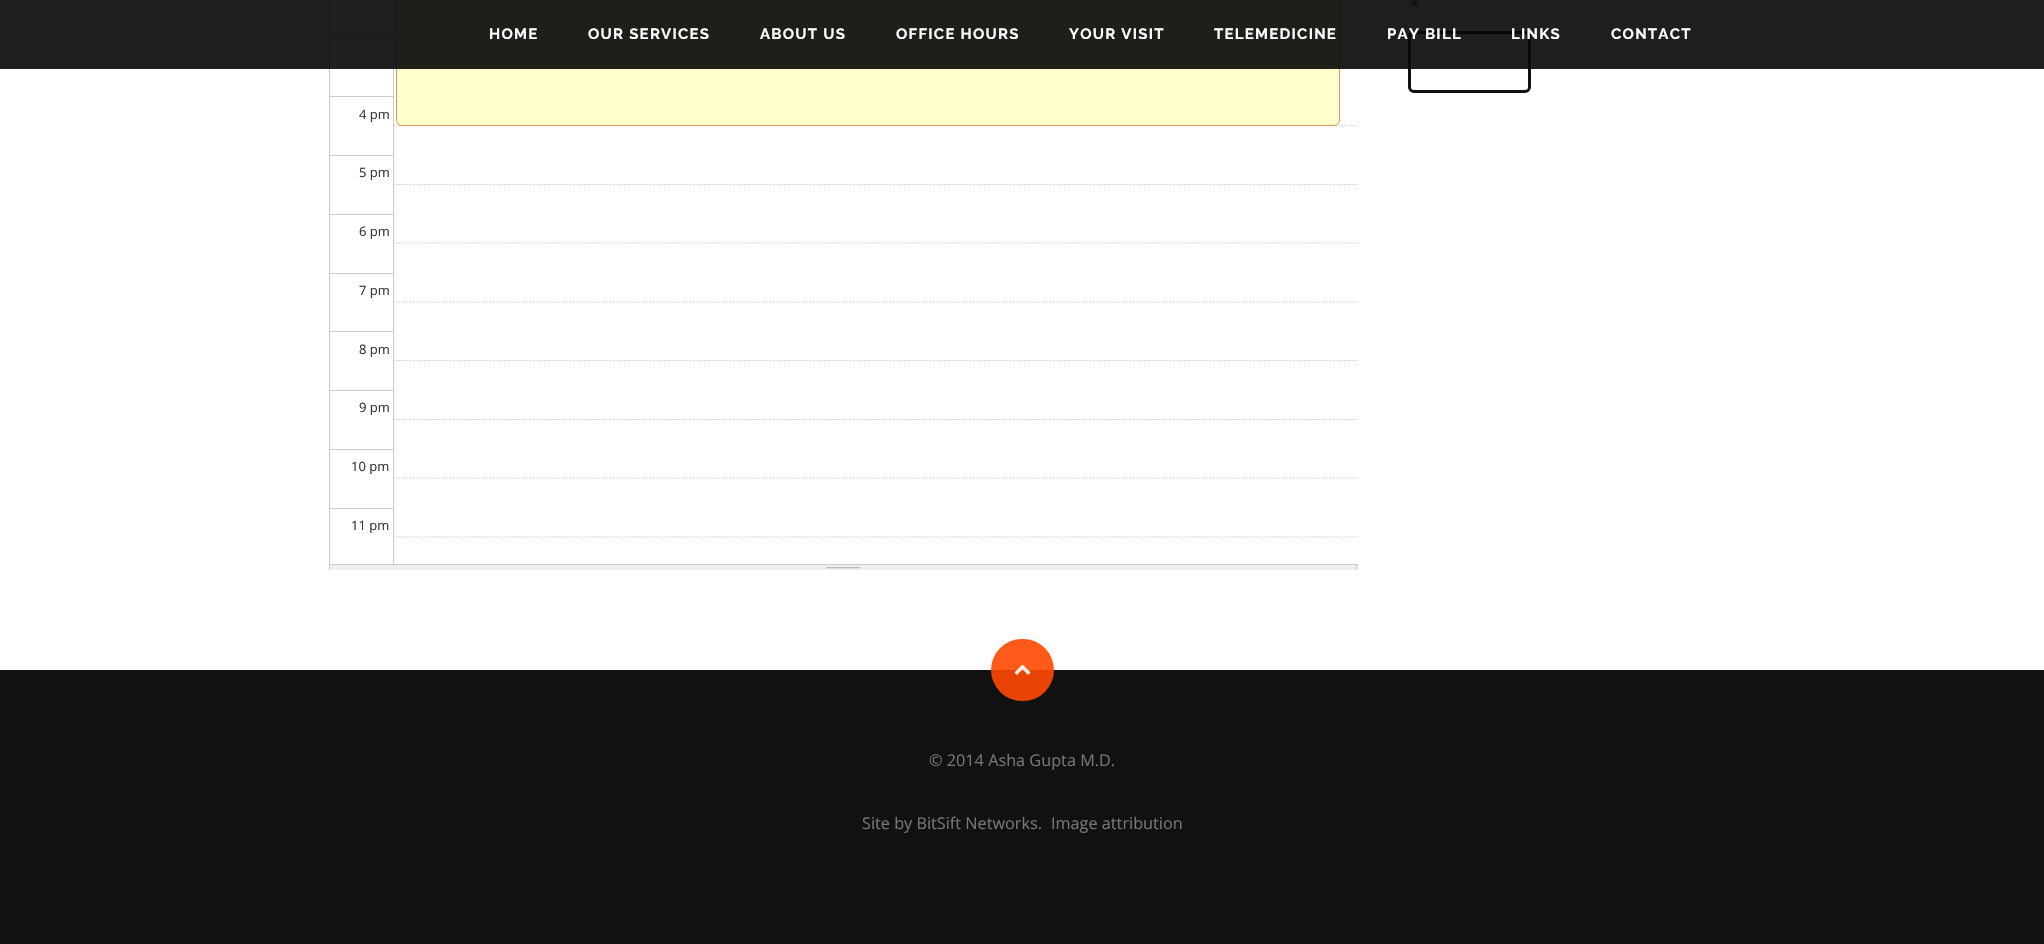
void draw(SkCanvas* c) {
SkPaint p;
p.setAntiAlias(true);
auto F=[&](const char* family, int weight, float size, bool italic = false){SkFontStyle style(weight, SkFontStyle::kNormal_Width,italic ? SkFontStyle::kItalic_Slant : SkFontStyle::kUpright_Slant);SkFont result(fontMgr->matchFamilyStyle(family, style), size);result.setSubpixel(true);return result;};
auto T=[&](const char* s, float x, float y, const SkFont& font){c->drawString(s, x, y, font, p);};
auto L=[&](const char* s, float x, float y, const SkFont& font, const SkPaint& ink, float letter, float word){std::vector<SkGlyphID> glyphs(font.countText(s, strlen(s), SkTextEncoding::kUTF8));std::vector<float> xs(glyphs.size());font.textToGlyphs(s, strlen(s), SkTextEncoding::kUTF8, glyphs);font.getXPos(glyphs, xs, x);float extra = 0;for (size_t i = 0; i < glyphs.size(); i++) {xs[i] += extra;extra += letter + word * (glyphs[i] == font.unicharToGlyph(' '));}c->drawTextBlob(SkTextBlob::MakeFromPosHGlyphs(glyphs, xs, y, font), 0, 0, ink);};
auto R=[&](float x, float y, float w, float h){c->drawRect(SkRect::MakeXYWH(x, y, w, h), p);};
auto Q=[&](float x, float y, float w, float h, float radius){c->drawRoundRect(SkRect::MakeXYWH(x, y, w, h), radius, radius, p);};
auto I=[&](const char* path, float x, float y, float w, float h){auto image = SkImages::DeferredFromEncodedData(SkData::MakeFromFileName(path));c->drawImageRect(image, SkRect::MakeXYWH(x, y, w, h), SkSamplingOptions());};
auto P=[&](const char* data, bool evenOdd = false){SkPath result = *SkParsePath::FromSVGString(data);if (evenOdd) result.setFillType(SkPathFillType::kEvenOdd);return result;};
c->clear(0xffffffff);
p.setColor(0xff777777);
Q(1411,0,7,6,3);
p.setStroke(true);
p.setStrokeWidth(3);
p.setColor(0xff111111);
c->drawRoundRect(SkRect::MakeXYWH(1409.5,32.5,120,59),4.5,4.5,p);
p.setStroke(false);
p.setColor(0xffcccccc);
R(329,564,1029,1);
R(329,0,1,565);
R(330,38,63,1);
R(393,0,1,564);
p.setStroke(true);
p.setStrokeWidth(1.2);
p.setPathEffect(SkDashPathEffect::Make({{1.25f,1.25f}}, 0));
c->drawPath(P("M394 8h963.5"),p);
p.setPathEffect(nullptr);
p.setPathEffect(SkDashPathEffect::Make({{1.25f,1.25f}}, 0));
c->drawPath(P("M394 67h963.5"),p);
p.setPathEffect(nullptr);
p.setPathEffect(SkDashPathEffect::Make({{1.25f,1.25f}}, 0));
c->drawPath(P("M394 125.5h963.5"),p);
p.setPathEffect(nullptr);
p.setStroke(false);
p.setColor(0xffffffcc);
c->drawRoundRect(SkRect::MakeXYWH(396.5,-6.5,943,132),5.5,5.5,p);
p.setStroke(true);
p.setStrokeWidth(1);
p.setColor(0xffe39364);
c->drawRoundRect(SkRect::MakeXYWH(396.5,-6.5,943,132),5.5,5.5,p);
p.setStroke(false);
p.setColor(0xe6070707);
R(0,0,2044,69);
auto f1 = F("Raleway",700,15);
p.setColor(0xffffffff);
L("HOME",489,39,f1,p,1.25,0);
L("OUR SERVICES",588,39,f1,p,1.25,0);
L("ABOUT US",760,39,f1,p,1.25,0);
L("OFFICE HOURS",896,39,f1,p,1.25,0);
L("YOUR VISIT",1069,39,f1,p,1.25,0);
L("TELEMEDICINE",1214,39,f1,p,1.25,0);
L("PAY BILL",1387,39,f1,p,1.25,0);
L("LINKS",1511,39,f1,p,1.25,0);
L("CONTACT",1611,39,f1,p,1.25,0);
p.setColor(0xffcccccc);
R(330,96,63,1);
auto f2 = F("Open Sans",400,13);
p.setColor(0xff333333);
T("4 pm",359,119,f2);
p.setColor(0xffcccccc);
R(330,155,63,1);
p.setColor(0xff333333);
T("5 pm",359,177,f2);
p.setColor(0xffcccccc);
R(330,214,63,1);
p.setColor(0xff333333);
T("6 pm",359,236,f2);
p.setColor(0xffcccccc);
R(330,273,63,1);
p.setColor(0xff333333);
T("7 pm",359,295,f2);
p.setColor(0xffcccccc);
R(330,331,63,1);
p.setColor(0xff333333);
T("8 pm",359,354,f2);
p.setColor(0xffcccccc);
R(330,390,63,1);
p.setColor(0xff333333);
T("9 pm",359,412,f2);
p.setColor(0xffcccccc);
R(330,449,63,1);
p.setColor(0xff333333);
T("10 pm",351,471,f2);
p.setColor(0xffcccccc);
R(330,508,63,1);
p.setColor(0xff333333);
T("11 pm",351,530,f2);
p.setStroke(true);
p.setStrokeWidth(1.2);
p.setColor(0xffcccccc);
p.setPathEffect(SkDashPathEffect::Make({{1.25f,1.25f}}, 0));
c->drawPath(P("M394 184.5h963.5"),p);
p.setPathEffect(nullptr);
p.setPathEffect(SkDashPathEffect::Make({{1.25f,1.25f}}, 0));
c->drawPath(P("M394 243h963.5"),p);
p.setPathEffect(nullptr);
p.setPathEffect(SkDashPathEffect::Make({{1.25f,1.25f}}, 0));
c->drawPath(P("M394 302h963.5"),p);
p.setPathEffect(nullptr);
p.setPathEffect(SkDashPathEffect::Make({{1.25f,1.25f}}, 0));
c->drawPath(P("M394 360.5h963.5"),p);
p.setPathEffect(nullptr);
p.setPathEffect(SkDashPathEffect::Make({{1.25f,1.25f}}, 0));
c->drawPath(P("M394 419.5h963.5"),p);
p.setPathEffect(nullptr);
p.setPathEffect(SkDashPathEffect::Make({{1.25f,1.25f}}, 0));
c->drawPath(P("M394 478h963.5"),p);
p.setPathEffect(nullptr);
p.setPathEffect(SkDashPathEffect::Make({{1.25f,1.25f}}, 0));
c->drawPath(P("M394 537h963.5"),p);
p.setPathEffect(nullptr);
p.setStroke(false);
p.setColor(0xffeeeeee);
R(329,565,1029,5);
p.setColor(0xffcccccc);
R(1356,565,1,5);
R(329,565,1,5);
I("1.png",826,567,34,2);
p.setColor(0xff111111);
R(0,670,2044,274);
p.setColor(0xe6ff4800);
Q(991,639,63,62,31);
I("2.png",1014,664,17,11);
auto f3 = F("Open Sans",400,16.25);
p.setColor(0xff777777);
T("© 2014 Asha Gupta M.D.",929,766,f3);
T("Site by BitSift Networks.",862,829,f3);
T("Image attribution",1051,829,f3);
}
